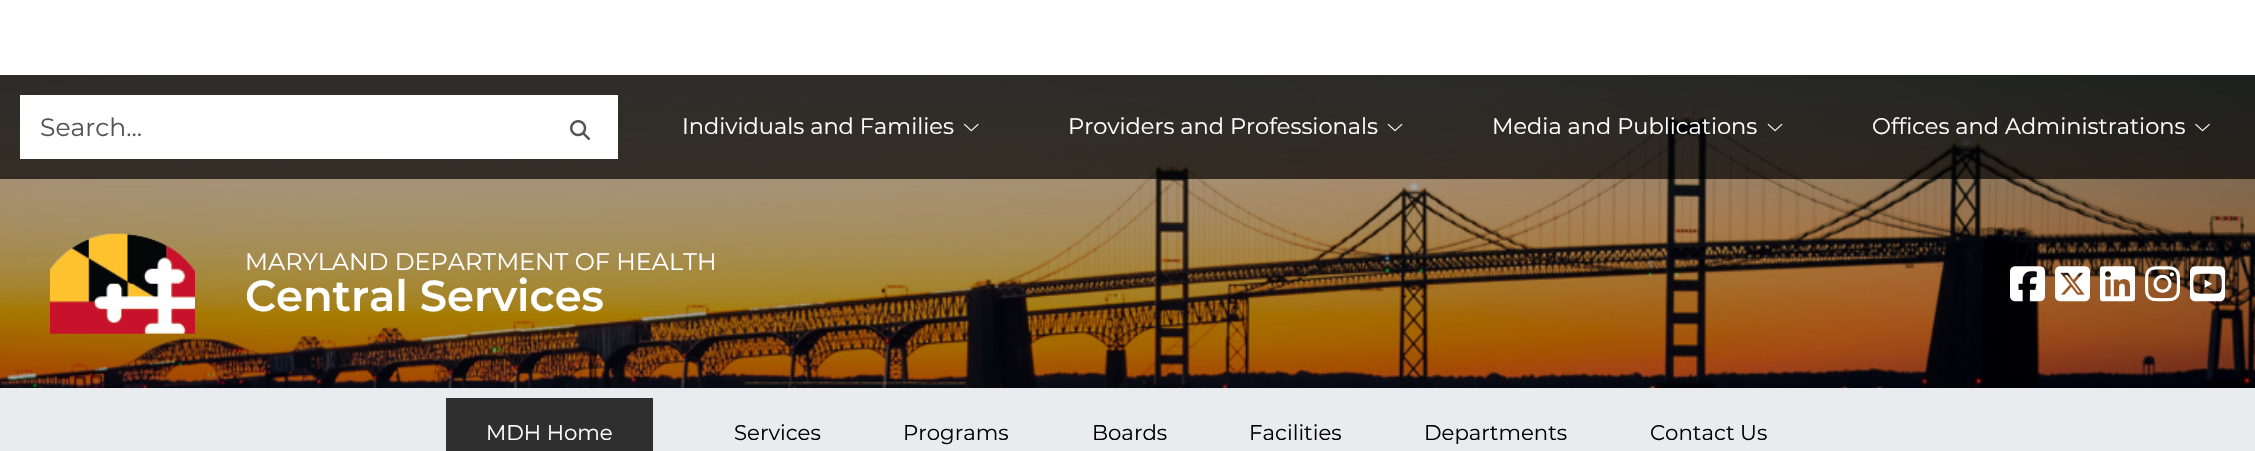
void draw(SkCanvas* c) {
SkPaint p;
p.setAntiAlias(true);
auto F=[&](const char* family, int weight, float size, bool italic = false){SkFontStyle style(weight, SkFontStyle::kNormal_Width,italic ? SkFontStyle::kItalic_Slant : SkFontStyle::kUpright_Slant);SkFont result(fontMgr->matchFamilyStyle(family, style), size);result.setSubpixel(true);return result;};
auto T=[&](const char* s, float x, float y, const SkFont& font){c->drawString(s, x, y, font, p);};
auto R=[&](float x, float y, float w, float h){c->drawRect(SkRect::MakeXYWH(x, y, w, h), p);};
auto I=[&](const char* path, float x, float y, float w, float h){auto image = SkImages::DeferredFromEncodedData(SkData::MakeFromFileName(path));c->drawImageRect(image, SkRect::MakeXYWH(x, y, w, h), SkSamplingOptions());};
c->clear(0xffffffff);
I("1.png",0,75,2255,313);
p.setColor(0xcc000000);
R(0,75,2255,104);
p.setColor(0xffffffff);
R(20,95,598,64);
auto f1 = F("Montserrat",100,25);
p.setColor(0xff545454);
T("Search...",40,136,f1);
I("2.png",570,120,20,20);
auto f2 = F("Montserrat",100,22.5);
p.setColor(0xffffffff);
T("Individuals and Families",682,134,f2);
I("3.png",963,123,16,9);
T("Providers and Professionals",1068,134,f2);
I("4.png",1387,123,16,9);
T("Media and Publications",1492,134,f2);
I("5.png",1767,123,16,9);
T("Offices and Administrations",1872,134,f2);
I("6.png",2195,123,15,9);
p.setColor(0x59000000);
R(0,179,2255,209);
I("7.png",50,233,145,101);
auto f3 = F("Montserrat",100,24);
p.setColor(0xffffffff);
T("MARYLAND DEPARTMENT OF HEALTH",245,270,f3);
auto f4 = F("Montserrat",600,43.25);
T("Central Services",245,311,f4);
I("8.png",2010,266,35,36);
I("9.png",2055,266,35,36);
I("10.png",2100,266,35,36);
I("11.png",2145,266,35,36);
I("12.png",2190,266,35,36);
p.setColor(0x29000000);
p.setMaskFilter(SkMaskFilter::MakeBlur(kNormal_SkBlurStyle, 4));
c->drawRect(SkRect::MakeXYWH(0,391,2255,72),p);
p.setMaskFilter(nullptr);
p.setColor(0xffe9ecef);
R(0,388,2255,63);
p.setColor(0xff2f2f30);
R(446,398,207,53);
auto f5 = F("Montserrat",100,21.25);
p.setColor(0xffffffff);
T("MDH Home",486,440,f5);
p.setColor(0xff000000);
T("Services",734,440,f5);
T("Programs",903,440,f5);
T("Boards",1092,440,f5);
T("Facilities",1249,440,f5);
T("Departments",1424,440,f5);
T("Contact Us",1650,440,f5);
}
